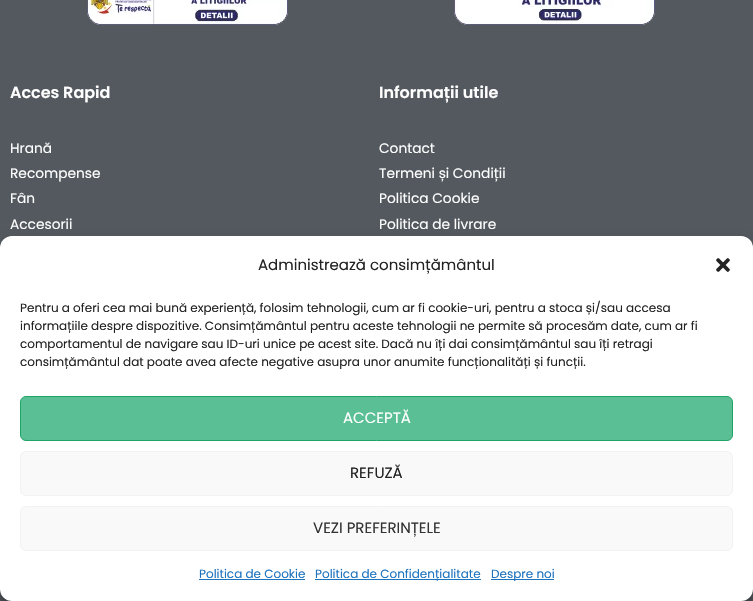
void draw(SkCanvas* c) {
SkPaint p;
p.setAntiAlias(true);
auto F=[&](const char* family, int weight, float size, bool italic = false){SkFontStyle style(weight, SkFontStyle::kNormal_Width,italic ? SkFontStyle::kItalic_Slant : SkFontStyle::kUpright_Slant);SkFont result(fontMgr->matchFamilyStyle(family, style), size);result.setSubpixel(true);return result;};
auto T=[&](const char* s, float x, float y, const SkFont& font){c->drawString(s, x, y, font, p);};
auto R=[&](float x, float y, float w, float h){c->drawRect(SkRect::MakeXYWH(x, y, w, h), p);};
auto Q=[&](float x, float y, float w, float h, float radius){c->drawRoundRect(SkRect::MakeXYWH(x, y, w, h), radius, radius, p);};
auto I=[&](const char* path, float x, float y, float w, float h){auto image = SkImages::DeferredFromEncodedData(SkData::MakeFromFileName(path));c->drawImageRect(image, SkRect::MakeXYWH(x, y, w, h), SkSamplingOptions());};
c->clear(0xff54595f);
I("1.png",87,0,201,25);
I("2.png",454,0,201,25);
auto f1 = F("Poppins",600,16);
p.setColor(0xffffffff);
T("Acces Rapid",10,98,f1);
auto f2 = F("Poppins",400,13.75);
T("Hrană",10,153,f2);
T("Recompense",10,178,f2);
T("Fân",10,203,f2);
T("Accesorii",10,229,f2);
T("Informații utile",379,98,f1);
T("Contact",379,153,f2);
T("Termeni și Condiții",379,178,f2);
T("Politica Cookie",379,203,f2);
T("Politica de livrare",379,229,f2);
p.setColor(0x3b000000);
p.setMaskFilter(SkMaskFilter::MakeBlur(kNormal_SkBlurStyle, 3));
c->drawRoundRect(SkRect::MakeXYWH(0,242,753,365),12,12,p);
p.setMaskFilter(nullptr);
p.setColor(0x30000000);
p.setMaskFilter(SkMaskFilter::MakeBlur(kNormal_SkBlurStyle, 10));
c->drawRoundRect(SkRect::MakeXYWH(0,246,753,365),12,12,p);
p.setMaskFilter(nullptr);
p.setColor(0xffffffff);
Q(0,236,753,365,12);
auto f3 = F("Poppins",400,15);
p.setColor(0xff222222);
T("Administrează consimțământul",258,270,f3);
I("3.png",716,258,14,14);
auto f4 = F("Poppins",400,12);
T("Pentru a oferi cea mai bună experiență, folosim tehnologii, cum ar fi cookie-uri, pentru a stoca și/sau accesa",20,312,f4);
T("informațiile despre dispozitive. Consimțământul pentru aceste tehnologii ne permite să procesăm date, cum ar fi",20,330,f4);
T("comportamentul de navigare sau ID-uri unice pe acest site. Dacă nu îți dai consimțământul sau îți retragi",20,348,f4);
T("consimțământul dat poate avea afecte negative asupra unor anumite funcționalități și funcții.",20,366,f4);
p.setColor(0xff5abf94);
c->drawRoundRect(SkRect::MakeXYWH(20.5,396.5,712,44),5.5,5.5,p);
p.setStroke(true);
p.setStrokeWidth(1);
p.setColor(0xff20a366);
c->drawRoundRect(SkRect::MakeXYWH(20.5,396.5,712,44),5.5,5.5,p);
p.setStroke(false);
p.setColor(0xffffffff);
T("ACCEPTĂ",343,423,f3);
p.setColor(0xfff9f9f9);
c->drawRoundRect(SkRect::MakeXYWH(20.5,451.5,712,44),5.5,5.5,p);
p.setStroke(true);
p.setColor(0xfff2f2f2);
c->drawRoundRect(SkRect::MakeXYWH(20.5,451.5,712,44),5.5,5.5,p);
p.setStroke(false);
p.setColor(0xff222222);
T("REFUZĂ",350,478,f3);
p.setColor(0xfff9f9f9);
c->drawRoundRect(SkRect::MakeXYWH(20.5,506.5,712,44),5.5,5.5,p);
p.setStroke(true);
p.setColor(0xfff2f2f2);
c->drawRoundRect(SkRect::MakeXYWH(20.5,506.5,712,44),5.5,5.5,p);
p.setStroke(false);
p.setColor(0xff333333);
T("VEZI PREFERINȚELE",313,533,f3);
p.setColor(0xff1e73be);
T("Politica de Cookie",199,578,f4);
R(199,579,106,1);
R(315,579,166,1);
T("Politica de Confidențialitate",315,578,f4);
R(491,579,63,1);
T("Despre noi",491,578,f4);
}
